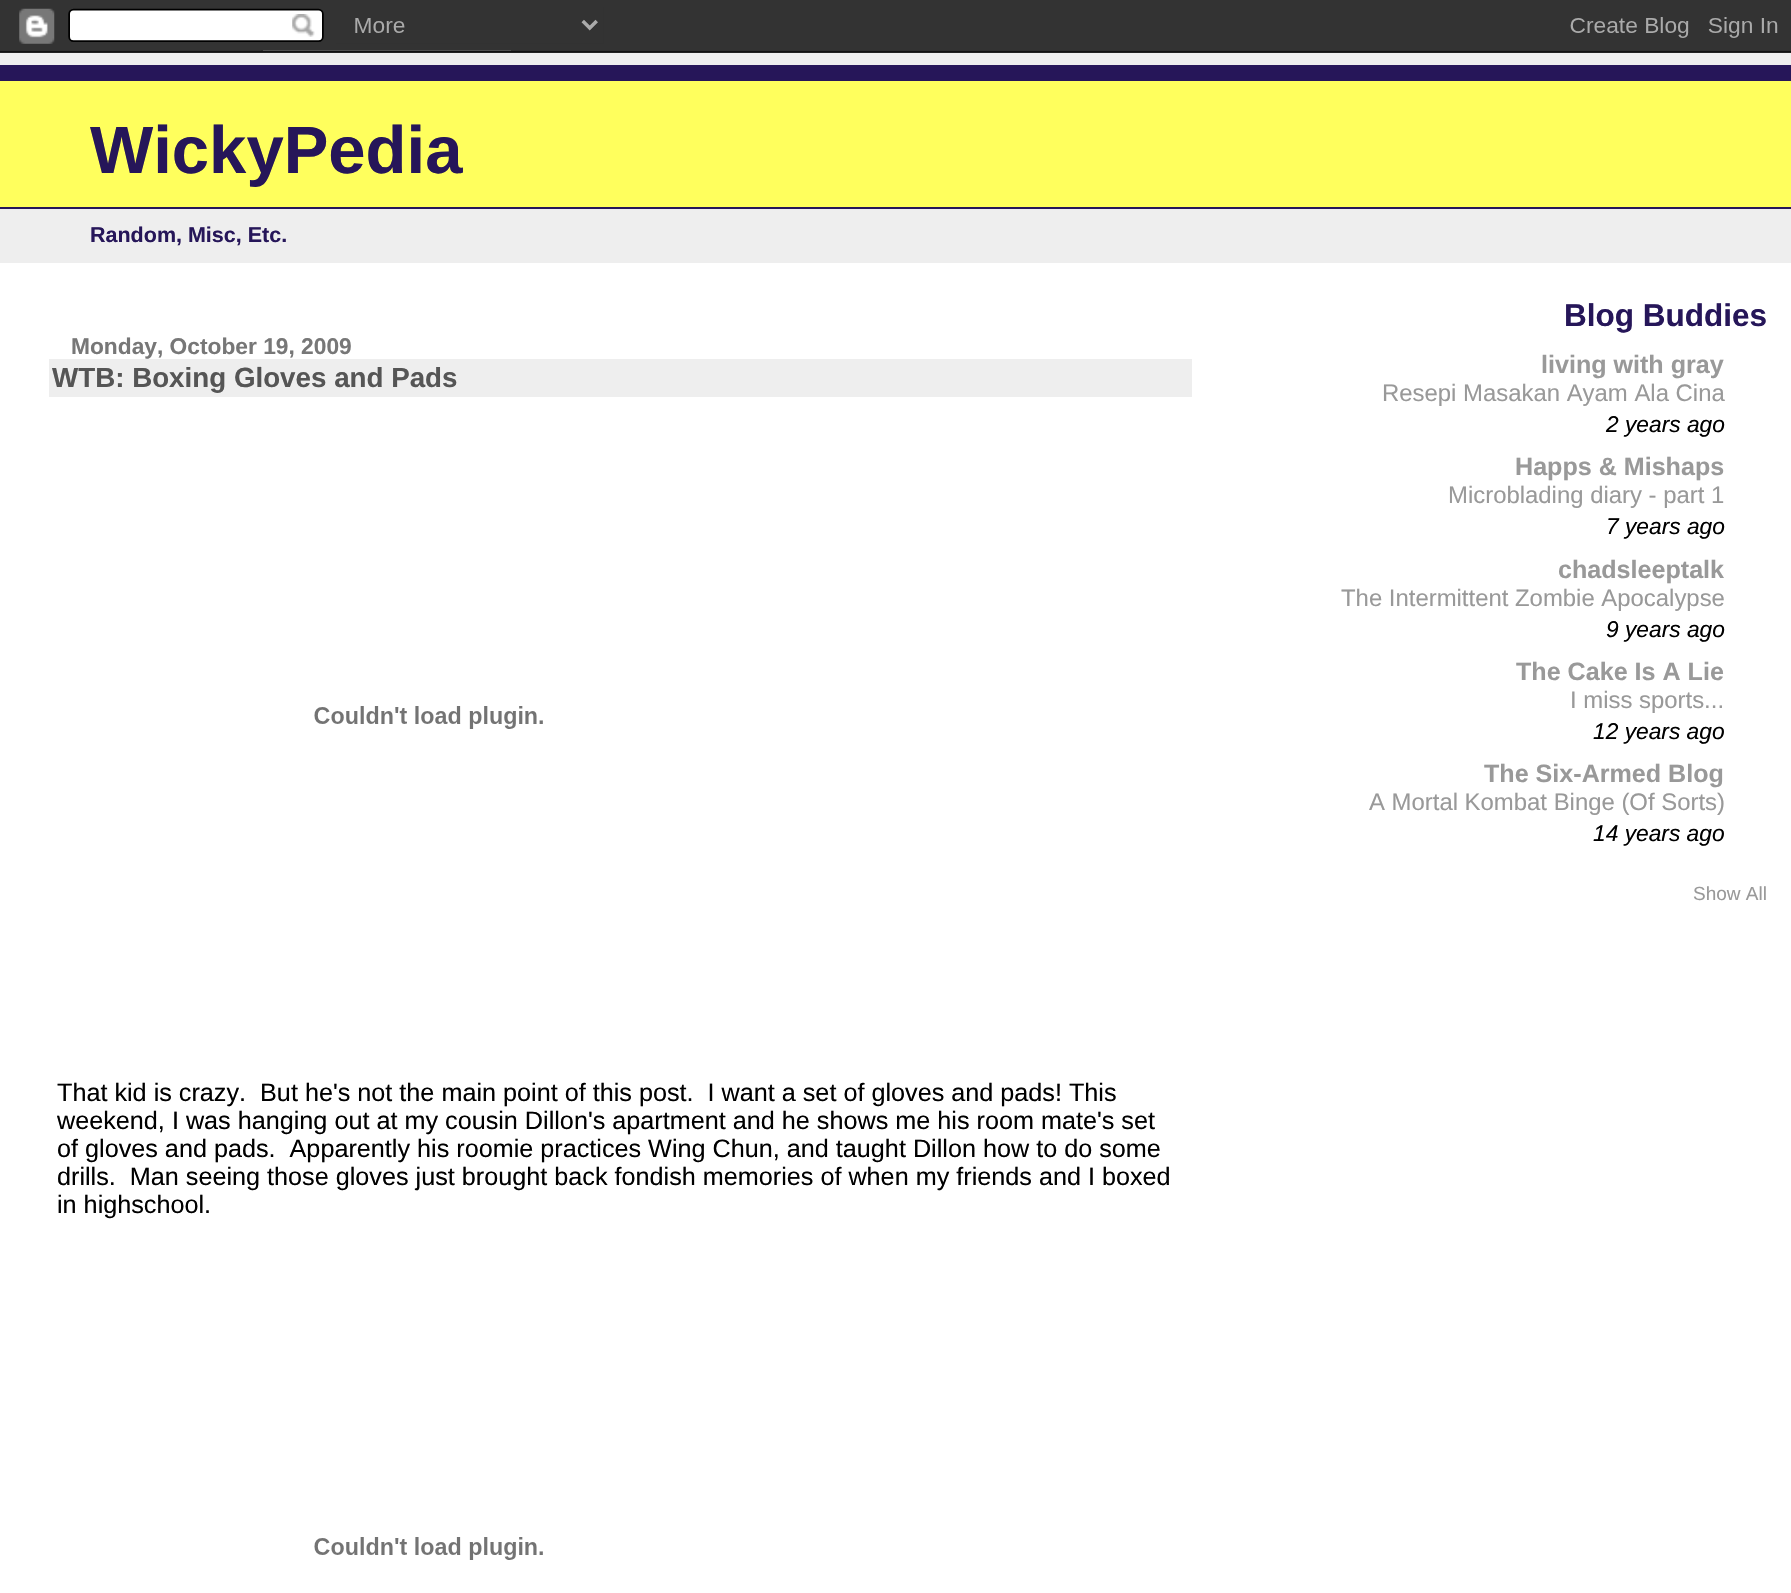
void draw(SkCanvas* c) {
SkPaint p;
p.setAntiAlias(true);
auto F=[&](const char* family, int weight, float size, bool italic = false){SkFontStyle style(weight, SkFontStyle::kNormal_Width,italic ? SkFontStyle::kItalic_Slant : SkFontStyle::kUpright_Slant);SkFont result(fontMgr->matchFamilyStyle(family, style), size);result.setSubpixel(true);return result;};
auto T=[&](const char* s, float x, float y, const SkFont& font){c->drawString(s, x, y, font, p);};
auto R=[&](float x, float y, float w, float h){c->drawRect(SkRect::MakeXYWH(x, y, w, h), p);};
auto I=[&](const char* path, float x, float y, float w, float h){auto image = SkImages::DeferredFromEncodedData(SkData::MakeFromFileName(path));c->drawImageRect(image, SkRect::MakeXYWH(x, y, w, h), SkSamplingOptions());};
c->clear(0xffffffff);
I("1.png",0,0,1791,53);
p.setColor(0xffeeeeee);
R(0,53,1791,210);
p.setColor(0xffffff5d);
R(0,81,1791,126);
p.setColor(0xff261659);
R(0,65,1791,16);
R(0,207,1791,2);
auto f1 = F("Liberation Sans",700,67);
T("WickyPedia",90,173,f1);
auto f2 = F("Liberation Sans",700,21.5);
T("Random, Misc, Etc.",90,242,f2);
auto f3 = F("Liberation Sans",700,22.75);
p.setColor(0xff777777);
T("Monday, October 19, 2009",71,354,f3);
p.setColor(0xffeeeeee);
R(49,359,1143,38);
auto f4 = F("Liberation Sans",700,27.75);
p.setColor(0xff555555);
T("WTB: Boxing Gloves and Pads",52,387,f4);
I("2.png",314,706,229,23);
auto f5 = F("Liberation Sans",400,25.2);
p.setColor(0xff000000);
T("That kid is crazy.  But he's not the main point of this post.  I want a set of gloves and pads! This",57,1101,f5);
T("weekend, I was hanging out at my cousin Dillon's apartment and he shows me his room mate's set",57,1129,f5);
T("of gloves and pads.  Apparently his roomie practices Wing Chun, and taught Dillon how to do some",57,1157,f5);
T("drills.  Man seeing those gloves just brought back fondish memories of when my friends and I boxed",57,1185,f5);
T("in highschool.",57,1213,f5);
I("2.png",314,1537,229,23);
auto f6 = F("Liberation Sans",700,31.5);
p.setColor(0xff261659);
T("Blog Buddies",1564,326,f6);
auto f7 = F("Liberation Sans",700,25.1);
p.setColor(0xff999999);
T("living with gray",1541,373,f7);
auto f8 = F("Liberation Sans",400,23.9);
T("Resepi Masakan Ayam Ala Cina",1382,401,f8);
auto f9 = F("Liberation Sans",400,22.75,true);
p.setColor(0xff000000);
T("2 years ago",1606,432,f9);
p.setColor(0xff999999);
T("Happs & Mishaps",1515,475,f7);
T("Microblading diary - part 1",1448,503,f8);
p.setColor(0xff000000);
T("7 years ago",1606,534,f9);
p.setColor(0xff999999);
T("chadsleeptalk",1558,578,f7);
T("The Intermittent Zombie Apocalypse",1341,606,f8);
p.setColor(0xff000000);
T("9 years ago",1606,637,f9);
p.setColor(0xff999999);
T("The Cake Is A Lie",1516,680,f7);
T("I miss sports...",1570,708,f8);
p.setColor(0xff000000);
T("12 years ago",1593,739,f9);
p.setColor(0xff999999);
T("The Six-Armed Blog",1484,782,f7);
T("A Mortal Kombat Binge (Of Sorts)",1369,810,f8);
p.setColor(0xff000000);
T("14 years ago",1593,841,f9);
auto f10 = F("Liberation Sans",400,19);
p.setColor(0xff999999);
T("Show All",1693,900,f10);
}
